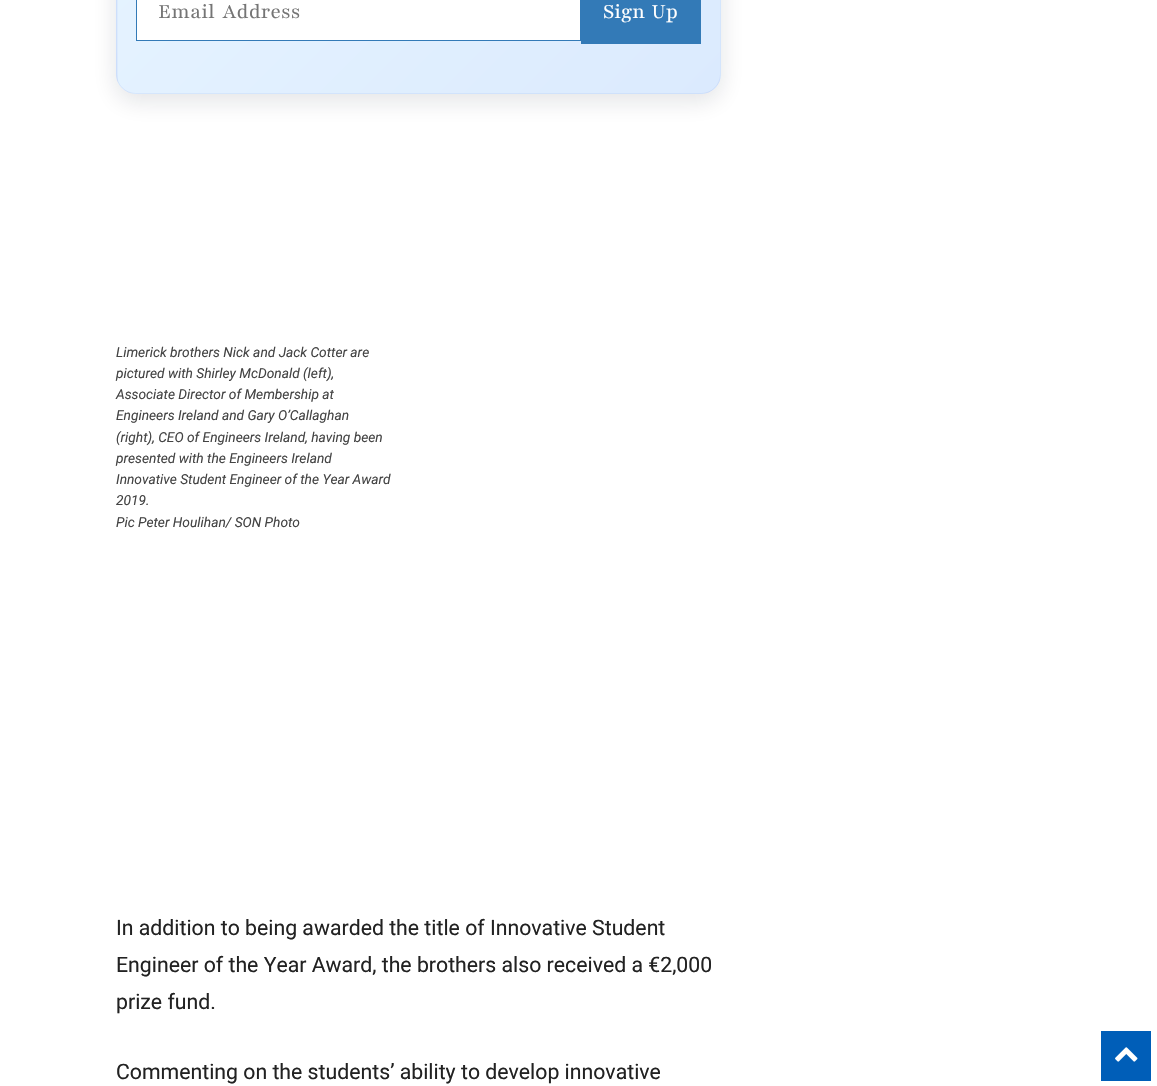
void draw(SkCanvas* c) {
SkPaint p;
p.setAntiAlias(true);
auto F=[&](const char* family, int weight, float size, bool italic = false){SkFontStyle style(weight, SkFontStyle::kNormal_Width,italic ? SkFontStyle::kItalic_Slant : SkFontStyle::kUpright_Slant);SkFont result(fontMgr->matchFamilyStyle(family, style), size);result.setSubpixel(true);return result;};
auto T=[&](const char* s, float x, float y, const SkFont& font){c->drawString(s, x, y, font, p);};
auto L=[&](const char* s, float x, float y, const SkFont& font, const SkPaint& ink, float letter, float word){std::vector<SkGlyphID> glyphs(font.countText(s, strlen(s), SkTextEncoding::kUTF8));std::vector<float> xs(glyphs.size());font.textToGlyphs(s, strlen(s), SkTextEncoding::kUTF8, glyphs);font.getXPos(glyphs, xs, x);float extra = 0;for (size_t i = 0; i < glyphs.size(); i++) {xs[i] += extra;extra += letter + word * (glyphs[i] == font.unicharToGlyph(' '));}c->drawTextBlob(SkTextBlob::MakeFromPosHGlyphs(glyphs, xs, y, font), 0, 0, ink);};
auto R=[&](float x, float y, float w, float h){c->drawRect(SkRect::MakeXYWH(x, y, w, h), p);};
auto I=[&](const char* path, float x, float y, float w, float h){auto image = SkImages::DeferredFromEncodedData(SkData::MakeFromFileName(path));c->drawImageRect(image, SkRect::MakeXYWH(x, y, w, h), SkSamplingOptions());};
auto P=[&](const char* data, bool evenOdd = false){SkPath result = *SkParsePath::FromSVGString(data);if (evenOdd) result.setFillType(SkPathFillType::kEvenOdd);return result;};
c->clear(0xffffffff);
p.setColor(0x1f0f172a);
p.setMaskFilter(SkMaskFilter::MakeBlur(kNormal_SkBlurStyle, 12.5));
c->drawRoundRect(SkRect::MakeXYWH(116,-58,605,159),20,20,p);
p.setMaskFilter(nullptr);
c->save();
c->clipPath(P("M136-109h565c11 0 20 9 20 20v163c0 11-9 20-20 20h-565c-11 0-20-9-20-20v-163c0-11 9-20 20-20z"),true);
{
const SkColor colors[] = {0xffe6f4ff,0xffdbeafe};
const float stops[] = {0,1};
const SkPoint ends[] = {{-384,-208}, {17,193}};
p.setShader(SkGradientShader::MakeLinear(ends, colors, stops, 2, SkTileMode::kClamp));
p.setAlpha(255);
}
R(116,0,2,83);
{
const SkColor colors[] = {0xffe6f4ff,0xffdbeafe};
const float stops[] = {0,1};
const SkPoint ends[] = {{218,-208}, {619,193}};
p.setShader(SkGradientShader::MakeLinear(ends, colors, stops, 2, SkTileMode::kClamp));
p.setAlpha(255);
}
R(118,0,602,93);
{
const SkColor colors[] = {0xffe6f4ff,0xffdbeafe};
const float stops[] = {0,1};
const SkPoint ends[] = {{821,-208}, {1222,193}};
p.setShader(SkGradientShader::MakeLinear(ends, colors, stops, 2, SkTileMode::kClamp));
p.setAlpha(255);
}
R(720,0,1,80);
{
const SkColor colors[] = {0xffe6f4ff,0xffdbeafe};
const float stops[] = {0,1};
const SkPoint ends[] = {{218,-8}, {619,393}};
p.setShader(SkGradientShader::MakeLinear(ends, colors, stops, 2, SkTileMode::kClamp));
p.setAlpha(255);
}
R(130,93,577,1);
c->restore();
p.setStroke(true);
p.setStrokeWidth(1);
p.setShader(nullptr);
p.setColor(0x141d4ed8);
c->drawRoundRect(SkRect::MakeXYWH(116.5,-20.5,604,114),19.5,19.5,p);
p.setStroke(false);
p.setColor(0xffffffff);
c->drawRect(SkRect::MakeXYWH(136.5,-.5,444,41),p);
p.setStroke(true);
p.setColor(0xff337ab7);
c->drawRect(SkRect::MakeXYWH(136.5,-.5,444,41),p);
auto f1 = F("Playfair",400,22.5);
p.setStroke(false);
p.setColor(0xff757575);
L("Email Address",158,18,f1,p,0,3);
p.setColor(0xff337ab7);
R(581,0,120,44);
p.setColor(0xffffffff);
L("Sign Up",603,18,f1,p,0,1);
auto f2 = F("Roboto",400,13.75,true);
p.setColor(0xff444444);
T("Limerick brothers Nick and Jack Cotter are",116,357,f2);
T("pictured with Shirley McDonald (left),",116,378,f2);
T("Associate Director of Membership at",116,399,f2);
T("Engineers Ireland and Gary O’Callaghan",116,420,f2);
T("(right), CEO of Engineers Ireland, having been",116,442,f2);
T("presented with the Engineers Ireland",116,463,f2);
T("Innovative Student Engineer of the Year Award",116,484,f2);
T("2019.",116,505,f2);
T("Pic Peter Houlihan/ SON Photo",116,527,f2);
auto f3 = F("Roboto",400,21.25);
p.setColor(0xff222222);
T("In addition to being awarded the title of Innovative Student",116,935,f3);
T("Engineer of the Year Award, the brothers also received a €2,000",116,972,f3);
T("prize fund.",116,1009,f3);
T("Commenting on the students’ ability to develop innovative",116,1079,f3);
p.setColor(0xff005eb8);
R(1101,1031,50,50);
I("1.png",1115,1047,23,15);
}
